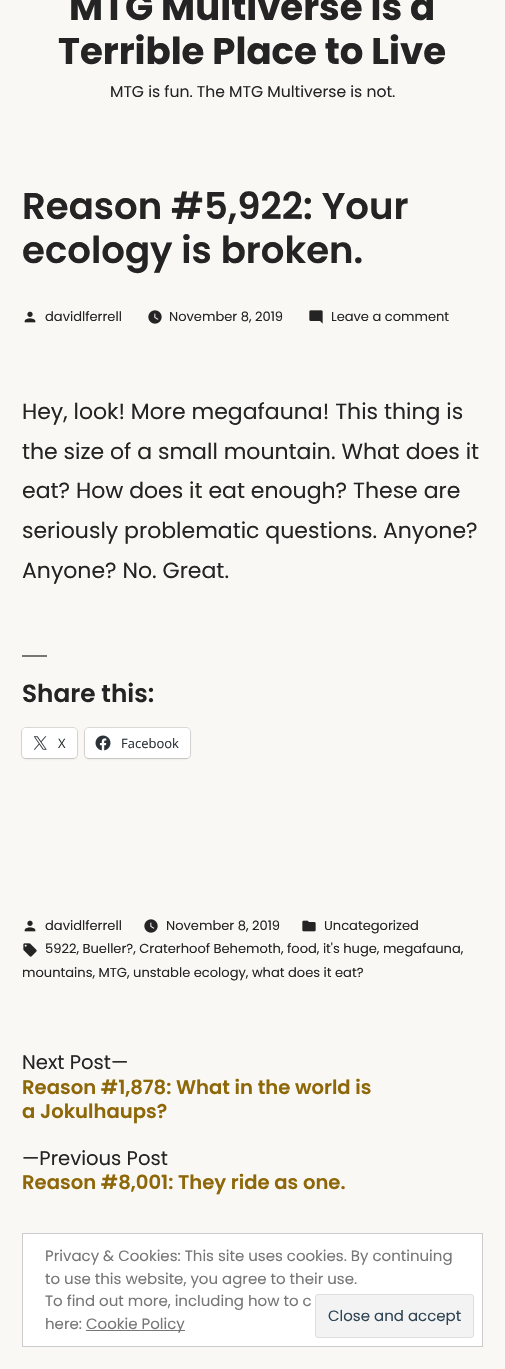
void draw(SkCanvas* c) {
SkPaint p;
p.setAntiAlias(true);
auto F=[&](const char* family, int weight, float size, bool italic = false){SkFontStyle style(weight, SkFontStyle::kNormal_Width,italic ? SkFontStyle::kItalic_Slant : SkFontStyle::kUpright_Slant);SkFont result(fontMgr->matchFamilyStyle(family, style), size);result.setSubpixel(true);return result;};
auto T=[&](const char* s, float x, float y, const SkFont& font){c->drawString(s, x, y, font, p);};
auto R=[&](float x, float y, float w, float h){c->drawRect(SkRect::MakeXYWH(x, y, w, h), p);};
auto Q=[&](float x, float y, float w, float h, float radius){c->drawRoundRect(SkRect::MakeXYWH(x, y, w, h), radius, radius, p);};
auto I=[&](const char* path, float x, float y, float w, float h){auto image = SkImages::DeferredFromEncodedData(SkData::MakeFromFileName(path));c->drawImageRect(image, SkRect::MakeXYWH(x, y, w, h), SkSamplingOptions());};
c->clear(0xfffaf8f5);
auto f1 = F("Poppins",700,37.1);
p.setColor(0xff242424);
T("MTG Multiverse is a",69,20,f1);
T("Terrible Place to Live",58,64,f1);
auto f2 = F("Poppins",400,15.6);
T("MTG is fun. The MTG Multiverse is not.",110,97,f2);
auto f3 = F("Poppins",600,37.1);
T("Reason #5,922: Your",22,219,f3);
T("ecology is broken.",22,263,f3);
I("1.png",24,311,12,12);
auto f4 = F("Poppins",400,13.05);
T("davidlferrell",45,321,f4);
I("2.png",148,310,14,14);
T("November 8, 2019",169,321,f4);
I("3.png",309,310,14,14);
T("Leave a comment",331,321,f4);
auto f5 = F("Poppins",400,22);
T("Hey, look! More megafauna! This thing is",22,419,f5);
T("the size of a small mountain. What does it",22,459,f5);
T("eat? How does it eat enough? These are",22,498,f5);
T("seriously problematic questions. Anyone?",22,538,f5);
T("Anyone? No. Great.",22,578,f5);
p.setColor(0xff767676);
R(22,655,25,2);
auto f6 = F("Poppins",600,24.75);
p.setColor(0xff242424);
T("Share this:",22,702,f6);
p.setStroke(true);
p.setStrokeWidth(1);
p.setColor(0xffdcdad8);
c->drawRoundRect(SkRect::MakeXYWH(21.5,727.5,56,31),4.5,4.5,p);
p.setStroke(false);
p.setColor(0x1f000000);
p.setMaskFilter(SkMaskFilter::MakeBlur(kNormal_SkBlurStyle, 1));
c->drawRoundRect(SkRect::MakeXYWH(22,729,55,30),4,4,p);
p.setMaskFilter(nullptr);
p.setColor(0xffffffff);
Q(22,728,55,30,4);
I("4.png",33,736,14,14);
auto f7 = F("Open Sans",400,13);
p.setColor(0xff2c3338);
T("X",58,748,f7);
p.setStroke(true);
p.setColor(0xffdcdad8);
c->drawRoundRect(SkRect::MakeXYWH(84.5,727.5,106,31),4.5,4.5,p);
p.setStroke(false);
p.setColor(0x1f000000);
p.setMaskFilter(SkMaskFilter::MakeBlur(kNormal_SkBlurStyle, 1));
c->drawRoundRect(SkRect::MakeXYWH(85,729,105,30),4,4,p);
p.setMaskFilter(nullptr);
p.setColor(0xffffffff);
Q(85,728,105,30,4);
I("5.png",95,735,16,16);
p.setColor(0xff2c3338);
T("Facebook",121,748,f7);
I("1.png",24,920,12,12);
p.setColor(0xff242424);
T("davidlferrell",45,930,f4);
I("2.png",144,919,14,14);
T("November 8, 2019",166,930,f4);
I("6.png",302,920,14,12);
T("Uncategorized",324,930,f4);
I("7.png",23,943,14,14);
T("5922, Bueller?, Craterhoof Behemoth, food, it's huge, megafauna,",45,953,f4);
T("mountains, MTG, unstable ecology, what does it eat?",22,977,f4);
auto f8 = F("Poppins",400,19.6);
T("Next Post—",22,1069,f8);
auto f9 = F("Poppins",600,19.6);
p.setColor(0xff8d6708);
T("Reason #1,878: What in the world is",22,1094,f9);
T("a Jokulhaups?",22,1118,f9);
p.setColor(0xff242424);
T("—Previous Post",22,1165,f8);
p.setColor(0xff8d6708);
T("Reason #8,001: They ride as one.",22,1189,f9);
p.setColor(0xffffffff);
c->drawRect(SkRect::MakeXYWH(22.5,1233.5,460,113),p);
p.setStroke(true);
p.setColor(0xffcccccc);
c->drawRect(SkRect::MakeXYWH(22.5,1233.5,460,113),p);
auto f10 = F("Poppins",400,15);
p.setStroke(false);
p.setColor(0xff767676);
T("Privacy & Cookies: This site uses cookies. By continuing",45,1261,f10);
T("to use this website, you agree to their use.",45,1284,f10);
T("To find out more, including how to c",45,1306,f10);
T("here:",45,1329,f10);
R(86,1330,99,1);
T("Cookie Policy",86,1329,f10);
p.setColor(0xfff3f3f3);
c->drawRoundRect(SkRect::MakeXYWH(315.5,1294.5,158,43),2.5,2.5,p);
p.setStroke(true);
p.setColor(0xffdedede);
c->drawRoundRect(SkRect::MakeXYWH(315.5,1294.5,158,43),2.5,2.5,p);
p.setStroke(false);
p.setColor(0xff2e4453);
T("Close and accept",328,1321,f10);
}
